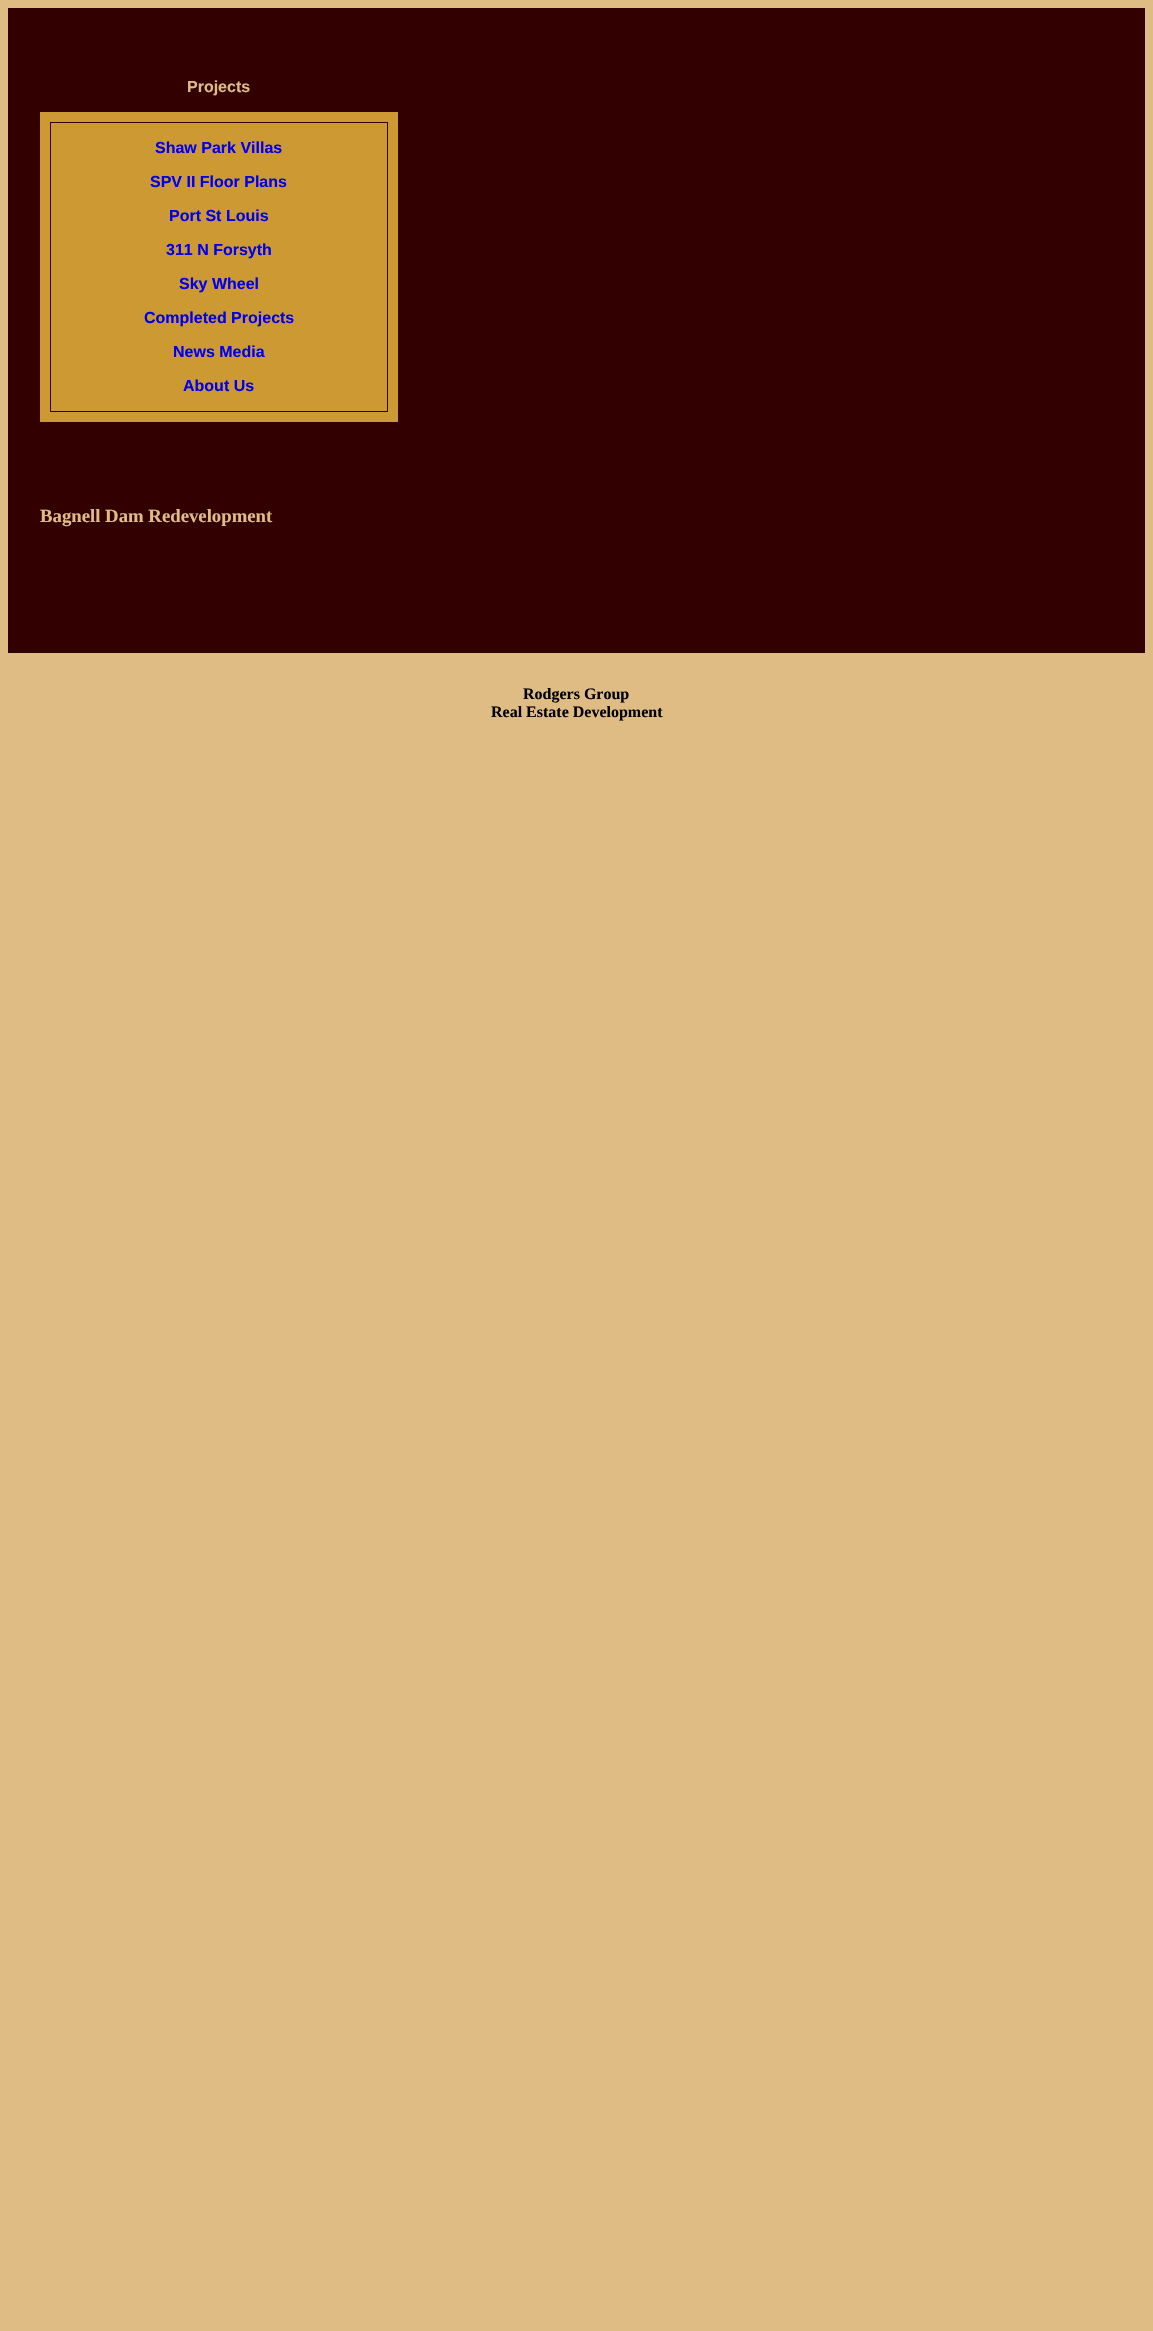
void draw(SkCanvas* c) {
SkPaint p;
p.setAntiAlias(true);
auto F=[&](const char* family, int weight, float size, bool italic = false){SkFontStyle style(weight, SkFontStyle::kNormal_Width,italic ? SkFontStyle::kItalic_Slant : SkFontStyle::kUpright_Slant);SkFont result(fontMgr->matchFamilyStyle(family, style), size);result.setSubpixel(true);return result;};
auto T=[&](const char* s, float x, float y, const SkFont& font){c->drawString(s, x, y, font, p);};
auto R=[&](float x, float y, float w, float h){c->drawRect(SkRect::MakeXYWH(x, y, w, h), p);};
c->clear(0xffe0bc85);
p.setColor(0xff330000);
R(8,8,1137,645);
auto f1 = F("Liberation Sans",700,16);
p.setColor(0xffe0bc85);
T("Projects",187,92,f1);
p.setColor(0xffcc9933);
R(40,112,358,310);
p.setStroke(true);
p.setStrokeWidth(1);
p.setColor(0xff330000);
c->drawRect(SkRect::MakeXYWH(50.5,122.5,337,289),p);
p.setStroke(false);
p.setColor(0xff0000ee);
T("Shaw Park Villas",155,153,f1);
T("SPV II Floor Plans",150,187,f1);
T("Port St Louis",169,221,f1);
T("311 N Forsyth",166,255,f1);
T("Sky Wheel",179,289,f1);
T("Completed Projects",144,323,f1);
T("News Media",173,357,f1);
T("About Us",183,391,f1);
auto f2 = F("Liberation Serif",700,18.75);
p.setColor(0xffe0bc85);
T("Bagnell Dam Redevelopment",40,522,f2);
auto f3 = F("Liberation Serif",700,16);
p.setColor(0xff000000);
T("Rodgers Group",523,699,f3);
T("Real Estate Development",491,717,f3);
}
